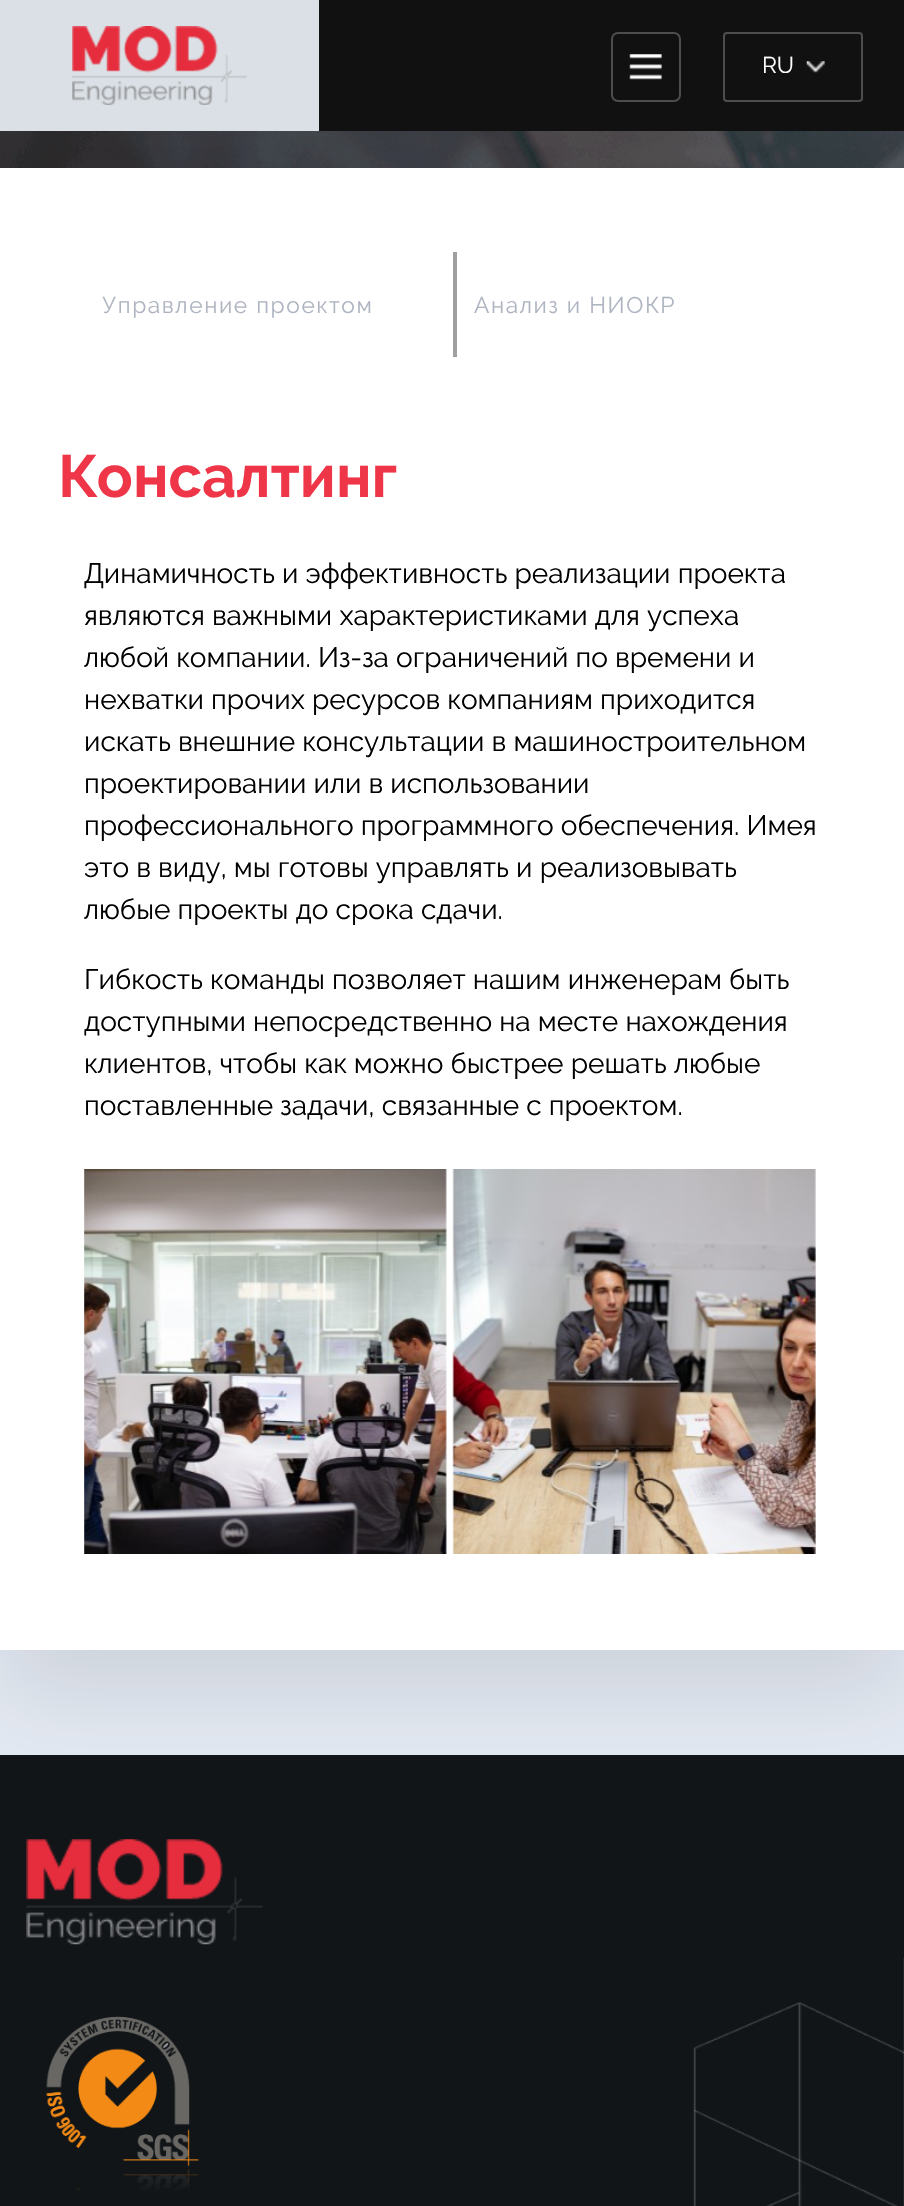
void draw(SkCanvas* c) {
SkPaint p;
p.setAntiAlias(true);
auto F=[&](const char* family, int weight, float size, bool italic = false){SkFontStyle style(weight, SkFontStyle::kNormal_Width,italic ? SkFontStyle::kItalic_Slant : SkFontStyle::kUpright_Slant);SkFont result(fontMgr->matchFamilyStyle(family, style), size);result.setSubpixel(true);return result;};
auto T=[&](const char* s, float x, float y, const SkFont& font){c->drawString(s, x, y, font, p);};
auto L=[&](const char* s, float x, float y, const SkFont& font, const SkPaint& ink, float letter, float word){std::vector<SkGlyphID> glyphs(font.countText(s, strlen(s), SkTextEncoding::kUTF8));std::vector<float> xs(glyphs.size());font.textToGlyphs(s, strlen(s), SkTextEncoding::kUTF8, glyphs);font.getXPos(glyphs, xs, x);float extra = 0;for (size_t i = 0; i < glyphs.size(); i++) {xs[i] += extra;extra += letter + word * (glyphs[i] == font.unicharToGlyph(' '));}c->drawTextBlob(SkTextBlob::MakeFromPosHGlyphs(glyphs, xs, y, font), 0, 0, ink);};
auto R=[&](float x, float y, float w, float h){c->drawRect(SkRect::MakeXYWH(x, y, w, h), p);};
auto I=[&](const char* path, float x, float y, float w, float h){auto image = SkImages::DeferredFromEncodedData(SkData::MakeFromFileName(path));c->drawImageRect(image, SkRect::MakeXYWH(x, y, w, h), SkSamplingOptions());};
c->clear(0xffe4eaf3);
I("1.png",0,131,904,37);
p.setColor(0x1a000000);
p.setMaskFilter(SkMaskFilter::MakeBlur(kNormal_SkBlurStyle, 44));
c->drawRect(SkRect::MakeXYWH(0,212,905,1482),p);
p.setMaskFilter(nullptr);
p.setColor(0xff111111);
R(319,0,585,131);
p.setColor(0xffdae0e5);
R(0,0,319,131);
I("2.png",72,26,175,79);
p.setStroke(true);
p.setStrokeWidth(2);
p.setColor(0xff4d4d4d);
c->drawRoundRect(SkRect::MakeXYWH(612,33,68,68),6,6,p);
I("3.png",629,54,33,26);
c->drawRoundRect(SkRect::MakeXYWH(724,33,138,68),3,3,p);
auto f1 = F("Raleway",400,22.75);
p.setStroke(false);
p.setColor(0xffffffff);
T("RU",762,73,f1);
I("4.png",806,61,19,12);
R(0,168,904,1482);
p.setColor(0xffaeb5c1);
L("Управление проектом",102,313,f1,p,1.6,0);
p.setColor(0xffa0a0a0);
R(453,252,4,105);
p.setColor(0xffaeb5c1);
L("Анализ и НИОКР",474,313,f1,p,1.6,0);
auto f2 = F("Raleway",700,59.5);
p.setColor(0xffee3648);
T("Консалтинг",58,497,f2);
auto f3 = F("Raleway",400,28);
p.setColor(0xff000000);
T("Динамичность и эффективность реализации проекта",84,583,f3);
T("являются важными характеристиками для успеха",84,625,f3);
T("любой компании. Из-за ограничений по времени и",84,667,f3);
T("нехватки прочих ресурсов компаниям приходится",84,709,f3);
T("искать внешние консультации в машиностроительном",84,751,f3);
T("проектировании или в использовании",84,793,f3);
T("профессионального программного обеспечения. Имея",84,835,f3);
T("это в виду, мы готовы управлять и реализовывать",84,877,f3);
T("любые проекты до срока сдачи.",84,919,f3);
T("Гибкость команды позволяет нашим инженерам быть",84,989,f3);
T("доступными непосредственно на месте нахождения",84,1031,f3);
T("клиентов, чтобы как можно быстрее решать любые",84,1073,f3);
T("поставленные задачи, связанные с проектом.",84,1115,f3);
I("5.png",84,1169,363,385);
I("6.png",452,1169,364,385);
p.setColor(0xff111518);
R(0,1755,904,451);
I("7.png",26,1839,237,106);
I("8.png",46,2016,153,175);
I("9.png",693,1957,211,249);
}
